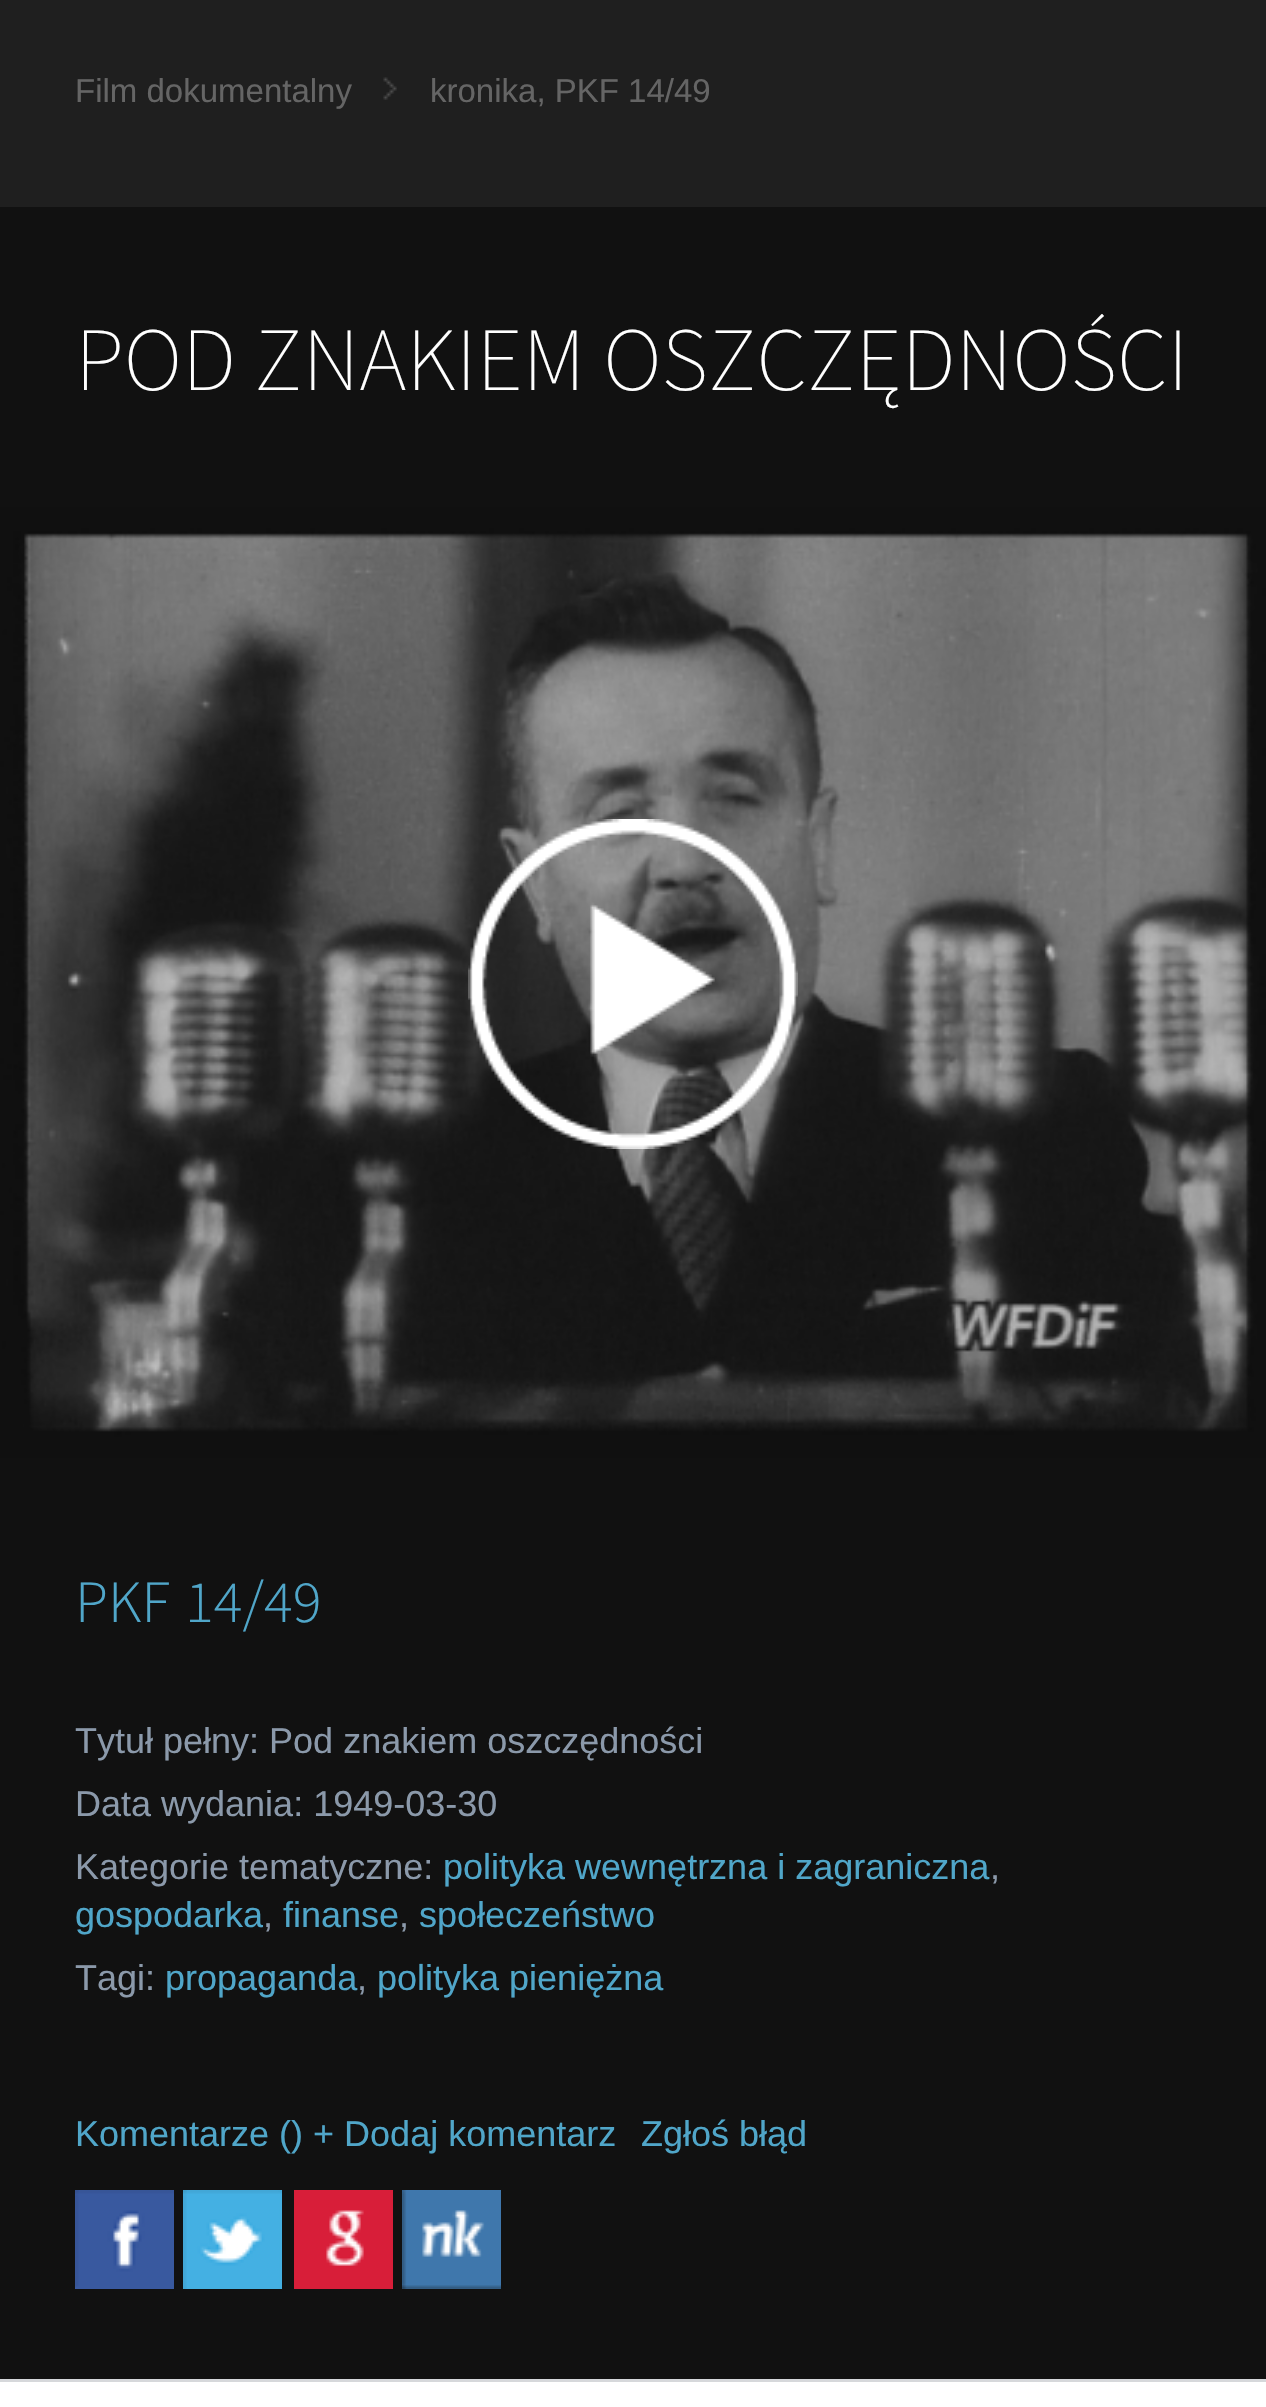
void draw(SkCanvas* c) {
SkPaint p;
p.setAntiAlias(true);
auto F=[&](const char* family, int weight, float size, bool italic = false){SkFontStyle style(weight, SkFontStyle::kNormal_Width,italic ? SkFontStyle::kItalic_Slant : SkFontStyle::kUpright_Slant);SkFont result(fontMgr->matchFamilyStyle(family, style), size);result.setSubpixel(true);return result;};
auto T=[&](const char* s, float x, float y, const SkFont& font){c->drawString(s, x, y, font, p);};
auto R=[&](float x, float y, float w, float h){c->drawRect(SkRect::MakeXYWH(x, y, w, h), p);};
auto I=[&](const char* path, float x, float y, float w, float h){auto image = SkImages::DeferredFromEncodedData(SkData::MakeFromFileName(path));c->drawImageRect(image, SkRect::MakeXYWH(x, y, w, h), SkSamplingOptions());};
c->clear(0xff111111);
p.setColor(0xff1f1f1f);
R(0,0,1266,207);
auto f1 = F("Liberation Sans",400,33);
p.setColor(0xff656565);
T("Film dokumentalny",75,102,f1);
I("1.png",383,77,14,23);
T("kronika, PKF 14/49",430,102,f1);
auto f2 = F("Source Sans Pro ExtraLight",200,90);
p.setColor(0xffffffff);
T("POD ZNAKIEM OSZCZĘDNOŚCI",75,390,f2);
I("2.png",0,507,1266,951);
I("3.png",468,819,330,330);
auto f3 = F("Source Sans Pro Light",300,60);
p.setColor(0xff50a6c9);
T("PKF",75,1622,f3);
T("14/49",185,1622,f3);
auto f4 = F("Liberation Sans",400,36);
p.setColor(0xff8b99aa);
T("Tytuł pełny: Pod znakiem oszczędności",75,1753,f4);
T("Data wydania: 1949-03-30",75,1816,f4);
T("Kategorie tematyczne:",75,1879,f4);
p.setColor(0xff50a6c9);
T("polityka wewnętrzna i zagraniczna",443,1879,f4);
p.setColor(0xff8b99aa);
T(",",990,1879,f4);
p.setColor(0xff50a6c9);
T("gospodarka",75,1927,f4);
p.setColor(0xff8b99aa);
T(",",263,1927,f4);
p.setColor(0xff50a6c9);
T("finanse",283,1927,f4);
p.setColor(0xff8b99aa);
T(",",399,1927,f4);
p.setColor(0xff50a6c9);
T("społeczeństwo",419,1927,f4);
p.setColor(0xff8b99aa);
T("Tagi:",75,1990,f4);
p.setColor(0xff50a6c9);
T("propaganda",165,1990,f4);
p.setColor(0xff8b99aa);
T(",",357,1990,f4);
p.setColor(0xff50a6c9);
T("polityka pieniężna",377,1990,f4);
T("Komentarze () + Dodaj komentarz",75,2146,f4);
T("Zgłoś błąd",641,2146,f4);
I("4.png",75,2190,99,99);
I("5.png",183,2190,99,99);
I("6.png",294,2190,99,99);
I("7.png",402,2190,99,99);
p.setColor(0xffffffff);
R(0,2382,1266,25);
p.setColor(0xffd6d8db);
R(0,2379,1266,3);
}
